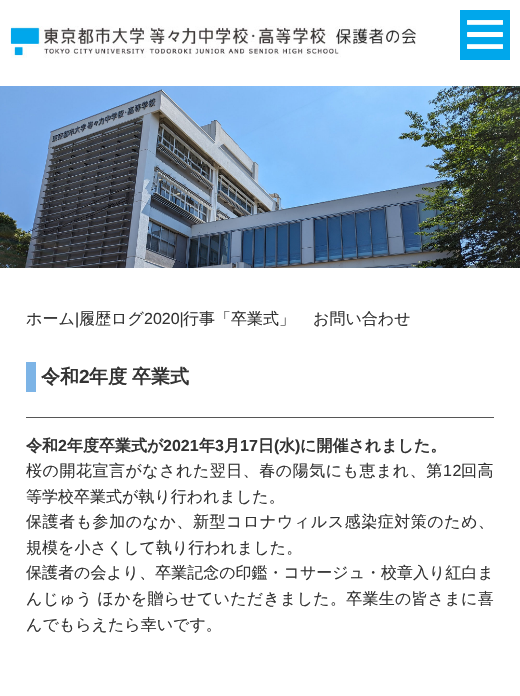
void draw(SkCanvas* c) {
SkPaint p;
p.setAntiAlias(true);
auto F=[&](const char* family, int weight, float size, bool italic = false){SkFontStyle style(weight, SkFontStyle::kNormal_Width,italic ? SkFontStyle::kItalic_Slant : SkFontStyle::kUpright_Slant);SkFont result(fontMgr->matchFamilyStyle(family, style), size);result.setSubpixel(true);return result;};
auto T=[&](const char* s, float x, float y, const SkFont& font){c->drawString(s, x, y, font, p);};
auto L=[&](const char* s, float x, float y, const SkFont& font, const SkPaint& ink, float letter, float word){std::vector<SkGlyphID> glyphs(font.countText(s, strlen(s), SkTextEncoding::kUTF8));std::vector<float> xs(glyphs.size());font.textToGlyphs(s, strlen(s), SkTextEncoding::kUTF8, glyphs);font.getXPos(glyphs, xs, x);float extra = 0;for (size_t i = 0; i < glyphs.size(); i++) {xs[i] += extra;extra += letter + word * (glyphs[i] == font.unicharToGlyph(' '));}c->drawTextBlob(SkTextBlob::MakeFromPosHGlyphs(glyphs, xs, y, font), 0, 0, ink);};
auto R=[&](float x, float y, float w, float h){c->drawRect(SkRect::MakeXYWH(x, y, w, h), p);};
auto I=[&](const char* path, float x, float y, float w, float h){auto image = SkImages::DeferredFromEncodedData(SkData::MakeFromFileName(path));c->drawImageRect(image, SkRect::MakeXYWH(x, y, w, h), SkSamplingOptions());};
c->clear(0xffffffff);
I("1.png",10,26,406,32);
I("2.png",460,10,50,50);
I("3.png",0,86,520,182);
auto f1 = F("WenQuanYi Zen Hei",500,16);
p.setColor(0xff333333);
T("ホーム",26,324,f1);
auto f2 = F("Liberation Sans",400,16);
T("|",75,324,f2);
T("履歴ログ",79,324,f1);
T("2020|",144,324,f2);
T("行事「卒業式」",183,324,f1);
T("お問い合わせ",313,324,f1);
p.setColor(0xff7db4e6);
R(26,362,10,30);
auto f3 = F("WenQuanYi Zen Hei",700,19);
p.setColor(0xff333333);
T("令和",41,383,f3);
auto f4 = F("Liberation Sans",700,19);
T("2",79,383,f4);
T("年度",89,383,f3);
T("卒業式",132,383,f3);
p.setColor(0xff565656);
R(26,417,468,1);
auto f5 = F("WenQuanYi Zen Hei",700,16);
p.setColor(0xff333333);
T("令和",26,451,f5);
auto f6 = F("Liberation Sans",700,16);
T("2",58,451,f6);
T("年度卒業式が",67,451,f5);
T("2021",163,451,f6);
T("年",199,451,f5);
T("3",215,451,f6);
T("月",224,451,f5);
T("17",240,451,f6);
T("日",258,451,f5);
T("(",274,451,f6);
T("水",279,451,f5);
T(")",295,451,f6);
T("に開催されました。",300,451,f5);
L("桜の開花宣言がなされた翌日、春の陽気にも恵まれ、第",26,476,f1,p,.5,0);
L("12",443,476,f2,p,.5,0);
L("回高",461,476,f1,p,.5,0);
T("等学校卒業式が執り行われました。",26,502,f1);
L("保護者も参加のなか、新型コロナウィルス感染症対策のため、",26,527,f1,p,.55,0);
T("規模を小さくして執り行われました。",26,553,f1);
T("保護者の会より、卒業記念の印鑑・コサージュ・校章入り紅白ま",26,578,f1);
L("んじゅう ほかを贈らせていただきました。卒業生の皆さまに喜",26,604,f1,p,.25,0);
T("んでもらえたら幸いです。",26,630,f1);
}
